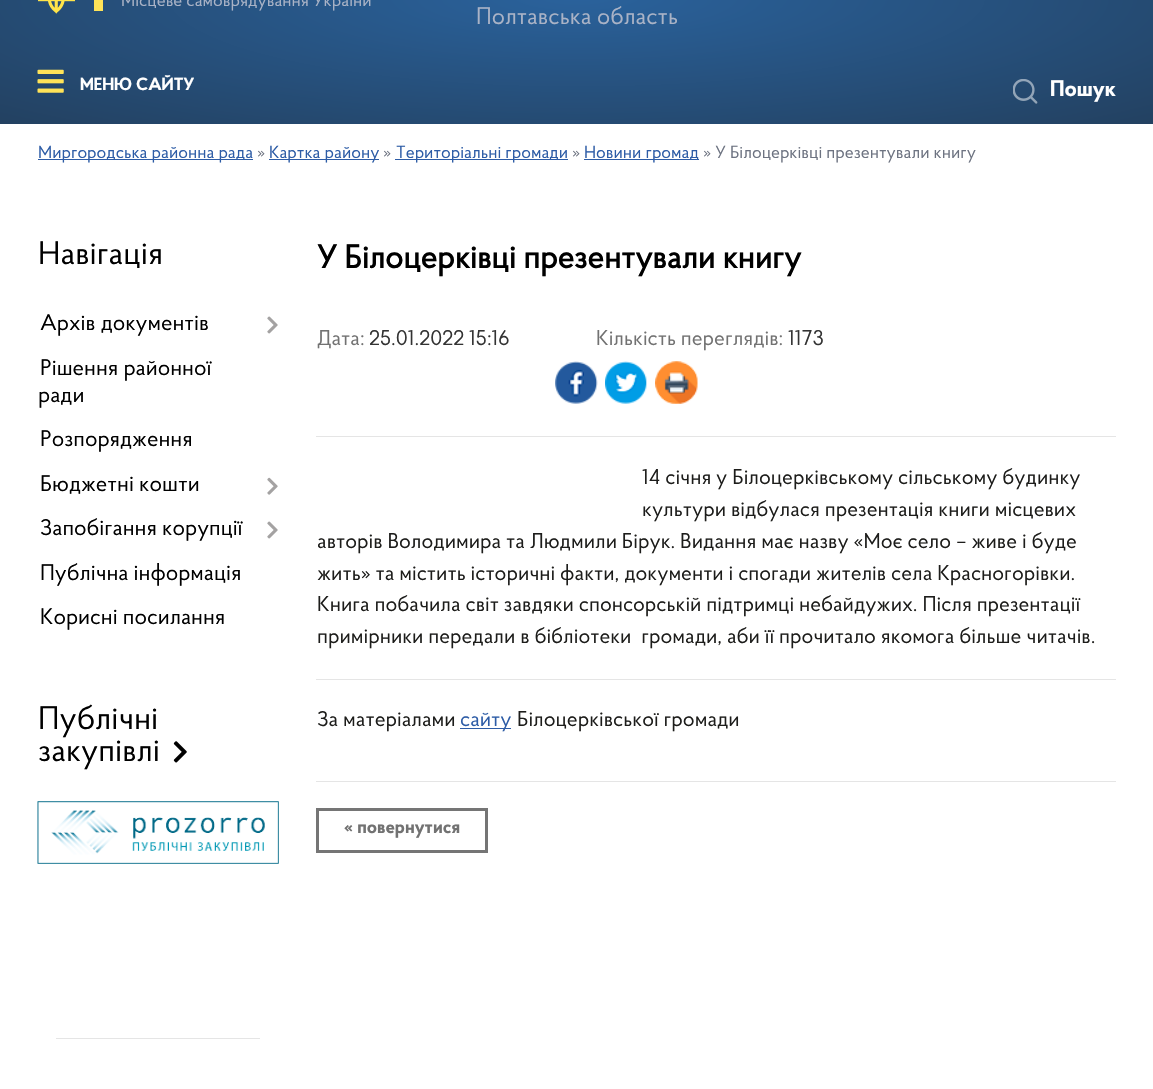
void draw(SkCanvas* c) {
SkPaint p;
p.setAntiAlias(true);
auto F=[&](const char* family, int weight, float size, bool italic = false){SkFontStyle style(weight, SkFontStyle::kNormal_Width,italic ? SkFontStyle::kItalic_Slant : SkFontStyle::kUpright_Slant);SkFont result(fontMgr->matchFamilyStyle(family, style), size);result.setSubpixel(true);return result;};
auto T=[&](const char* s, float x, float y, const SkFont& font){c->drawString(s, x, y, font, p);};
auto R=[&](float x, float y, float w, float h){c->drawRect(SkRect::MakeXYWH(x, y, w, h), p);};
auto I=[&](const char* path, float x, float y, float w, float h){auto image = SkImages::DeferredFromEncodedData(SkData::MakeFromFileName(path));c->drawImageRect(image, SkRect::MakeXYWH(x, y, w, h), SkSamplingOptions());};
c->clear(0xffffffff);
{
const SkColor colors[] = {0xff2a629c,0xff234161};
const float stops[] = {0,1};
SkMatrix m = SkMatrix::Translate(577,-3.1).preScale(816,179);
p.setShader(SkGradientShader::MakeRadial({0, 0}, 1, colors, stops, 2, SkTileMode::kClamp, 0, &m));
p.setAlpha(255);
}
R(0,0,1153,124);
I("1.png",38,0,37,14);
p.setShader(nullptr);
p.setColor(0xffffe358);
R(94,0,9,11);
auto f1 = F("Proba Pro",400,17.5);
p.setColor(0xffaab3c6);
T("Місцеве самоврядування України",121,6,f1);
auto f2 = F("Proba Pro",400,23.75);
T("Полтавська область",476,24,f2);
I("2.png",37,69,27,24);
auto f3 = F("Proba Pro",700,17.5);
p.setColor(0xffffffff);
T("МЕНЮ САЙТУ",80,90,f3);
I("3.png",1013,79,25,25);
auto f4 = F("Proba Pro",700,22.5);
T("Пошук",1050,96,f4);
p.setColor(0xff2d5ca6);
R(38,159,215,1);
T("Миргородська районна рада",38,158,f1);
p.setColor(0xff6d7381);
T("»",257,158,f1);
p.setColor(0xff2d5ca6);
R(269,159,110,1);
T("Картка району",269,158,f1);
p.setColor(0xff6d7381);
T("»",383,158,f1);
p.setColor(0xff2d5ca6);
R(395,159,173,1);
T("Територіальні громади",396,158,f1);
p.setColor(0xff6d7381);
T("»",572,158,f1);
p.setColor(0xff2d5ca6);
R(584,159,115,1);
T("Новини громад",584,158,f1);
p.setColor(0xff6d7381);
T("» У Білоцерківці презентували книгу",703,158,f1);
auto f5 = F("Proba Pro",400,32.5);
p.setColor(0xff000000);
T("Навігація",38,264,f5);
auto f6 = F("Proba Pro",400,22.5);
T("Архів документів",40,330,f6);
I("4.png",267,316,11,18);
T("Рішення районної",40,375,f6);
T("ради",38,402,f6);
T("Розпорядження",40,446,f6);
T("Бюджетні кошти",40,491,f6);
I("5.png",267,477,11,18);
T("Запобігання корупції",40,535,f6);
I("4.png",267,521,11,18);
T("Публічна інформація",40,580,f6);
T("Корисні посилання",40,624,f6);
T("Публічні",38,729,f5);
T("закупівлі",38,761,f5);
I("6.png",173,741,14,22);
I("7.png",37,801,242,63);
p.setColor(0xffe5e5e5);
R(56,1038,204,1);
auto f7 = F("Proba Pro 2",700,32.5);
p.setColor(0xff000000);
T("У Білоцерківці презентували книгу",317,268,f7);
auto f8 = F("Proba Pro",400,21.25);
p.setColor(0xff727272);
T("Дата:",317,345,f8);
p.setColor(0xff333333);
T("25.01.2022 15:16",369,345,f8);
p.setColor(0xff727272);
T("Кількість переглядів:",596,345,f8);
p.setColor(0xff333333);
T("1173",788,345,f8);
I("8.png",555,361,43,43);
I("9.png",605,361,42,43);
I("10.png",655,361,43,43);
p.setColor(0xffe5e5e5);
R(316,436,800,1);
p.setColor(0xff1d1d1b);
T("14 січня у Білоцерківському сільському будинку",642,484,f8);
T("культури відбулася презентація книги місцевих",642,516,f8);
T("авторів Володимира та Людмили Бірук. Видання має назву «Моє село – живе і буде",317,548,f8);
T("жить» та містить історичні факти, документи і спогади жителів села Красногорівки.",317,580,f8);
T("Книга побачила світ завдяки спонсорській підтримці небайдужих. Після презентації",317,611,f8);
T("примірники передали в бібліотеки  громади, аби її прочитало якомога більше читачів.",317,643,f8);
p.setColor(0xffe5e5e5);
R(316,679,800,1);
p.setColor(0xff1d1d1b);
T("За матеріалами",317,726,f8);
p.setColor(0xff2d5ca6);
R(460,728,51,1);
T("сайту",460,726,f8);
p.setColor(0xff1d1d1b);
T("Білоцерківської громади",517,726,f8);
p.setColor(0xffe5e5e5);
R(316,781,800,1);
p.setStroke(true);
p.setStrokeWidth(3);
p.setColor(0xff757575);
c->drawRect(SkRect::MakeXYWH(317.5,809.5,169,42),p);
auto f9 = F("Proba Pro",700,18.75);
p.setStroke(false);
p.setColor(0xff727272);
T("« повернутися",344,833,f9);
}
